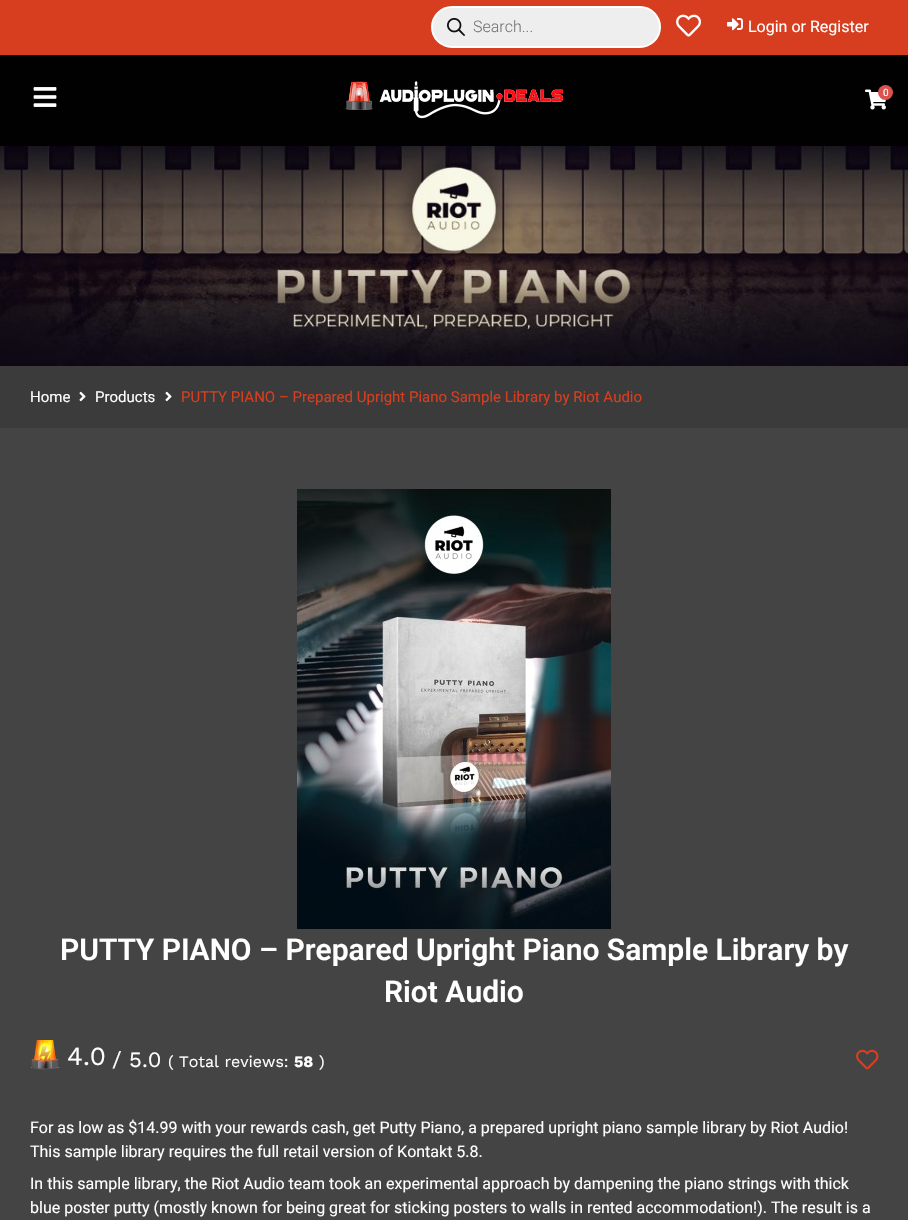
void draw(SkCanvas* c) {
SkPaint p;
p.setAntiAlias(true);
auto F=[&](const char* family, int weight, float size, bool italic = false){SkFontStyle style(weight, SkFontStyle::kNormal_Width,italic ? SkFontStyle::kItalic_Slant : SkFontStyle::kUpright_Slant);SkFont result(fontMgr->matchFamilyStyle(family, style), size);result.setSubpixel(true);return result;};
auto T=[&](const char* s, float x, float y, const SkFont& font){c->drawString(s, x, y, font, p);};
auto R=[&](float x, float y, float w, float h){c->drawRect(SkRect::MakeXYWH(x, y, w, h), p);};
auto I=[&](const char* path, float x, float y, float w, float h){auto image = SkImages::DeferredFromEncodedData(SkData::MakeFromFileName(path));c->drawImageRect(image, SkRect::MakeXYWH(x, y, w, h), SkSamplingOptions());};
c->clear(0xffd73e1f);
p.setColor(0xffeeeeee);
c->drawRoundRect(SkRect::MakeXYWH(432,7,228,40),20,20,p);
p.setStroke(true);
p.setStrokeWidth(2);
p.setColor(0xffffffff);
c->drawRoundRect(SkRect::MakeXYWH(432,7,228,40),20,20,p);
I("1.png",447,18,18,18);
auto f1 = F("Roboto",300,16);
p.setStroke(false);
p.setColor(0xff777777);
T("Search...",473,32,f1);
I("2.png",676,14,25,23);
I("3.png",727,18,16,13);
auto f2 = F("Roboto",400,16);
p.setColor(0xffffffff);
T("Login or Register",748,32,f2);
p.setColor(0xff010101);
R(0,55,908,91);
I("4.png",33,87,24,20);
I("5.png",345,81,218,38);
I("6.png",865,89,22,21);
p.setColor(0xffd9534f);
c->drawCircle(885.5,92.5,7.5,p);
auto f3 = F("Roboto",400,10);
p.setColor(0xffffffff);
T("0",883,96,f3);
I("7.png",0,146,908,220);
p.setColor(0xff3b3b3b);
R(0,366,908,62);
auto f4 = F("Roboto",400,15);
p.setColor(0xffffffff);
T("Home",30,402,f4);
I("8.png",79,391,7,11);
T("Products",95,402,f4);
I("8.png",165,391,7,11);
p.setColor(0xffd73e1f);
T("PUTTY PIANO – Prepared Upright Piano Sample Library by Riot Audio",181,402,f4);
p.setColor(0xff444444);
R(0,428,908,792);
I("9.png",297,489,314,440);
auto f5 = F("Roboto",600,30);
p.setColor(0xffffffff);
T("PUTTY PIANO – Prepared Upright Piano Sample Library by",60,960,f5);
T("Riot Audio",384,1002,f5);
I("10.png",30,1040,30,30);
auto f6 = F("Work Sans",400,26);
T("4.0",67,1065,f6);
auto f7 = F("Work Sans",400,22);
T("/ 5.0",112,1067,f7);
auto f8 = F("Work Sans",400,16);
T("( Total reviews:",168,1067,f8);
auto f9 = F("Work Sans",700,16);
T("58",294,1067,f9);
T(")",319,1067,f8);
I("11.png",856,1049,23,21);
T("For as low as $14.99 with your rewards cash, get Putty Piano, a prepared upright piano sample library by Riot Audio!",30,1133,f2);
T("This sample library requires the full retail version of Kontakt 5.8.",30,1157,f2);
T("In this sample library, the Riot Audio team took an experimental approach by dampening the piano strings with thick",30,1189,f2);
T("blue poster putty (mostly known for being great for sticking posters to walls in rented accommodation!). The result is a",30,1213,f2);
}
